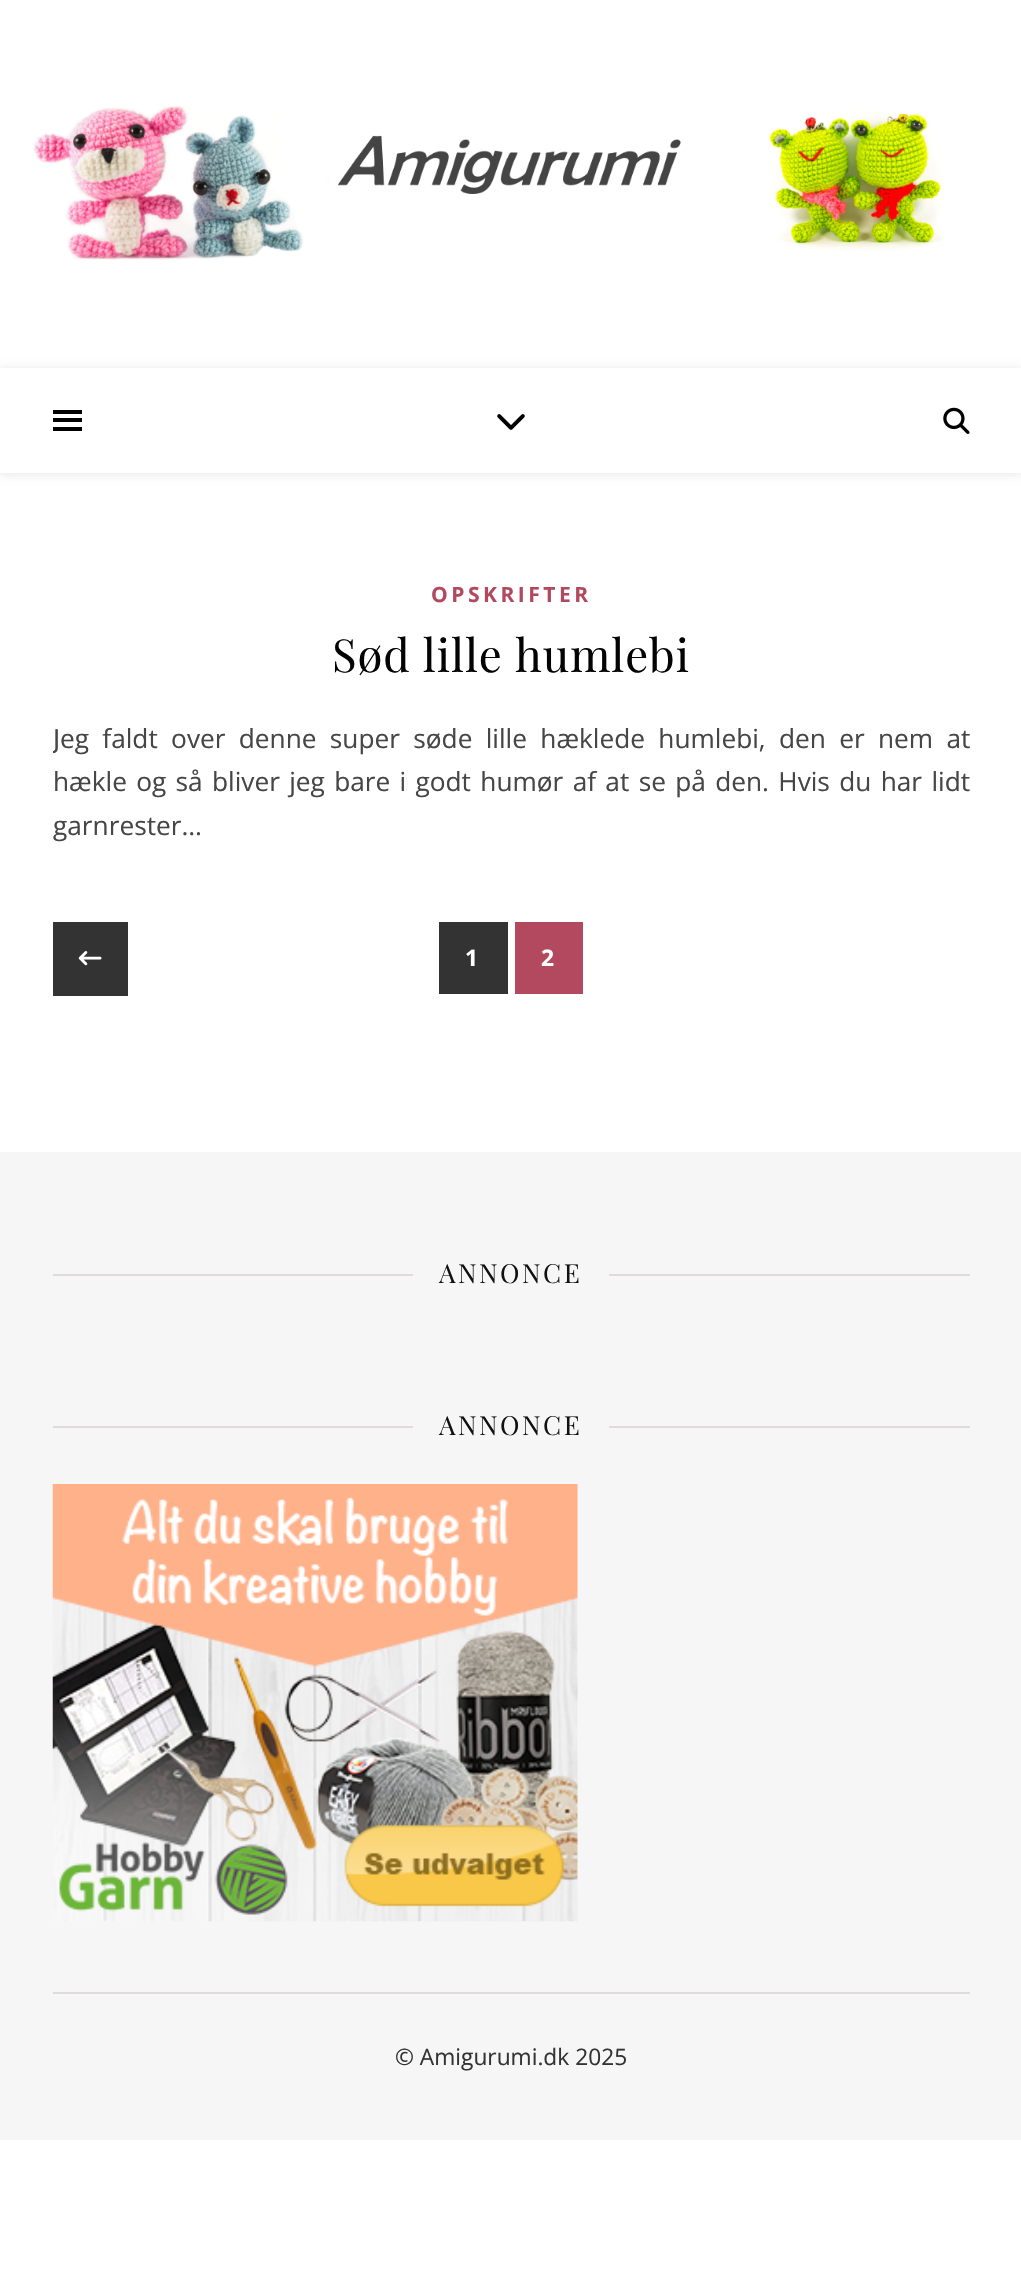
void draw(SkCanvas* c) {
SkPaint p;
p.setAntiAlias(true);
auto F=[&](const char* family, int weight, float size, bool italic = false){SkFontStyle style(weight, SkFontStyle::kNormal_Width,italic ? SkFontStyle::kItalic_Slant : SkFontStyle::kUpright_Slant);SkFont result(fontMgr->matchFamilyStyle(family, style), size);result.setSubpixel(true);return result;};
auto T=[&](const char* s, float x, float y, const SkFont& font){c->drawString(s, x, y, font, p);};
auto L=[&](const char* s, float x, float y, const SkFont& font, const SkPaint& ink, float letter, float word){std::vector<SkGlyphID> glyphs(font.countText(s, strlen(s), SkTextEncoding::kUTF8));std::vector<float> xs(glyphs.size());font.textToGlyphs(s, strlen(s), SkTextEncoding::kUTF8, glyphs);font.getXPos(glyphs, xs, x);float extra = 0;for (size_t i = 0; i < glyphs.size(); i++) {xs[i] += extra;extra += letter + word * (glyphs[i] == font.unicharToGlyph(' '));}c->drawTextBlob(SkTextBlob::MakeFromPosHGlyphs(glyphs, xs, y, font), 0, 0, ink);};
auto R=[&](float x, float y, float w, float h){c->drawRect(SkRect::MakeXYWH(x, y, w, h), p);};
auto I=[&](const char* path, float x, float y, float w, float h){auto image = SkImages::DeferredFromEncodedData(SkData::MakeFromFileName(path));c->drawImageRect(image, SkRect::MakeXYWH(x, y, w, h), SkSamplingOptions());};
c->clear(0xffffffff);
I("1.png",33,106,912,154);
p.setColor(0x1a000000);
p.setMaskFilter(SkMaskFilter::MakeBlur(kNormal_SkBlurStyle, 4.5));
c->drawRect(SkRect::MakeXYWH(0,369,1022,105),p);
p.setMaskFilter(nullptr);
p.setColor(0xffffffff);
R(0,368,1021,105);
p.setColor(0xff000000);
R(53,410,29,4);
R(53,418,29,4);
R(53,427,29,4);
I("2.png",497,414,28,16);
I("3.png",943,407,27,27);
auto f1 = F("Open Sans",700,21);
p.setColor(0xffb2495e);
L("OPSKRIFTER",431,602,f1,p,3.5,0);
auto f2 = F("Playfair Display",400,45.5);
p.setColor(0xff030303);
L("Sød lille humlebi",332,672,f2,p,.9,0);
c->save();
c->clipRect(SkRect::MakeXYWH(53,716,917,154));
auto f3 = F("Noto Sans",400,26.25);
p.setColor(0xff464646);
T("J",53,748,f3);
c->restore();
auto f4 = F("Open Sans",400,26.25);
L("eg faldt over denne super søde lille hæklede humlebi, den er nem at",60,748,f4,p,0,6.5);
L("hækle og så bliver jeg bare i godt humør af at se på den. Hvis du har lidt",53,791,f4,p,0,2.5);
T("garnrester…",53,835,f4);
p.setColor(0xff333333);
R(53,922,75,74);
I("4.png",78,951,24,15);
R(439,922,69,72);
auto f5 = F("Open Sans",700,22.75);
p.setColor(0xffffffff);
L("1",465,966,f5,p,3.5,0);
p.setColor(0xffb2495e);
R(515,922,68,72);
p.setColor(0xffffffff);
L("2",541,966,f5,p,3.5,0);
p.setColor(0xfff6f6f6);
R(0,1152,1021,988);
p.setColor(0xffe0dbdb);
R(53,1992,917,2);
R(53,1274,360,2);
auto f6 = F("Playfair Display",400,26.25);
p.setColor(0xff111111);
L("ANNONCE",439,1283,f6,p,2.5,0);
p.setColor(0xffe0dbdb);
R(609,1274,361,2);
R(53,1426,360,2);
p.setColor(0xff111111);
L("ANNONCE",439,1435,f6,p,2.5,0);
p.setColor(0xffe0dbdb);
R(609,1426,361,2);
I("5.png",52,1484,526,438);
auto f7 = F("Open Sans",400,22.75);
p.setColor(0xff333333);
T("© Amigurumi.dk 2025",395,2065,f7);
}
